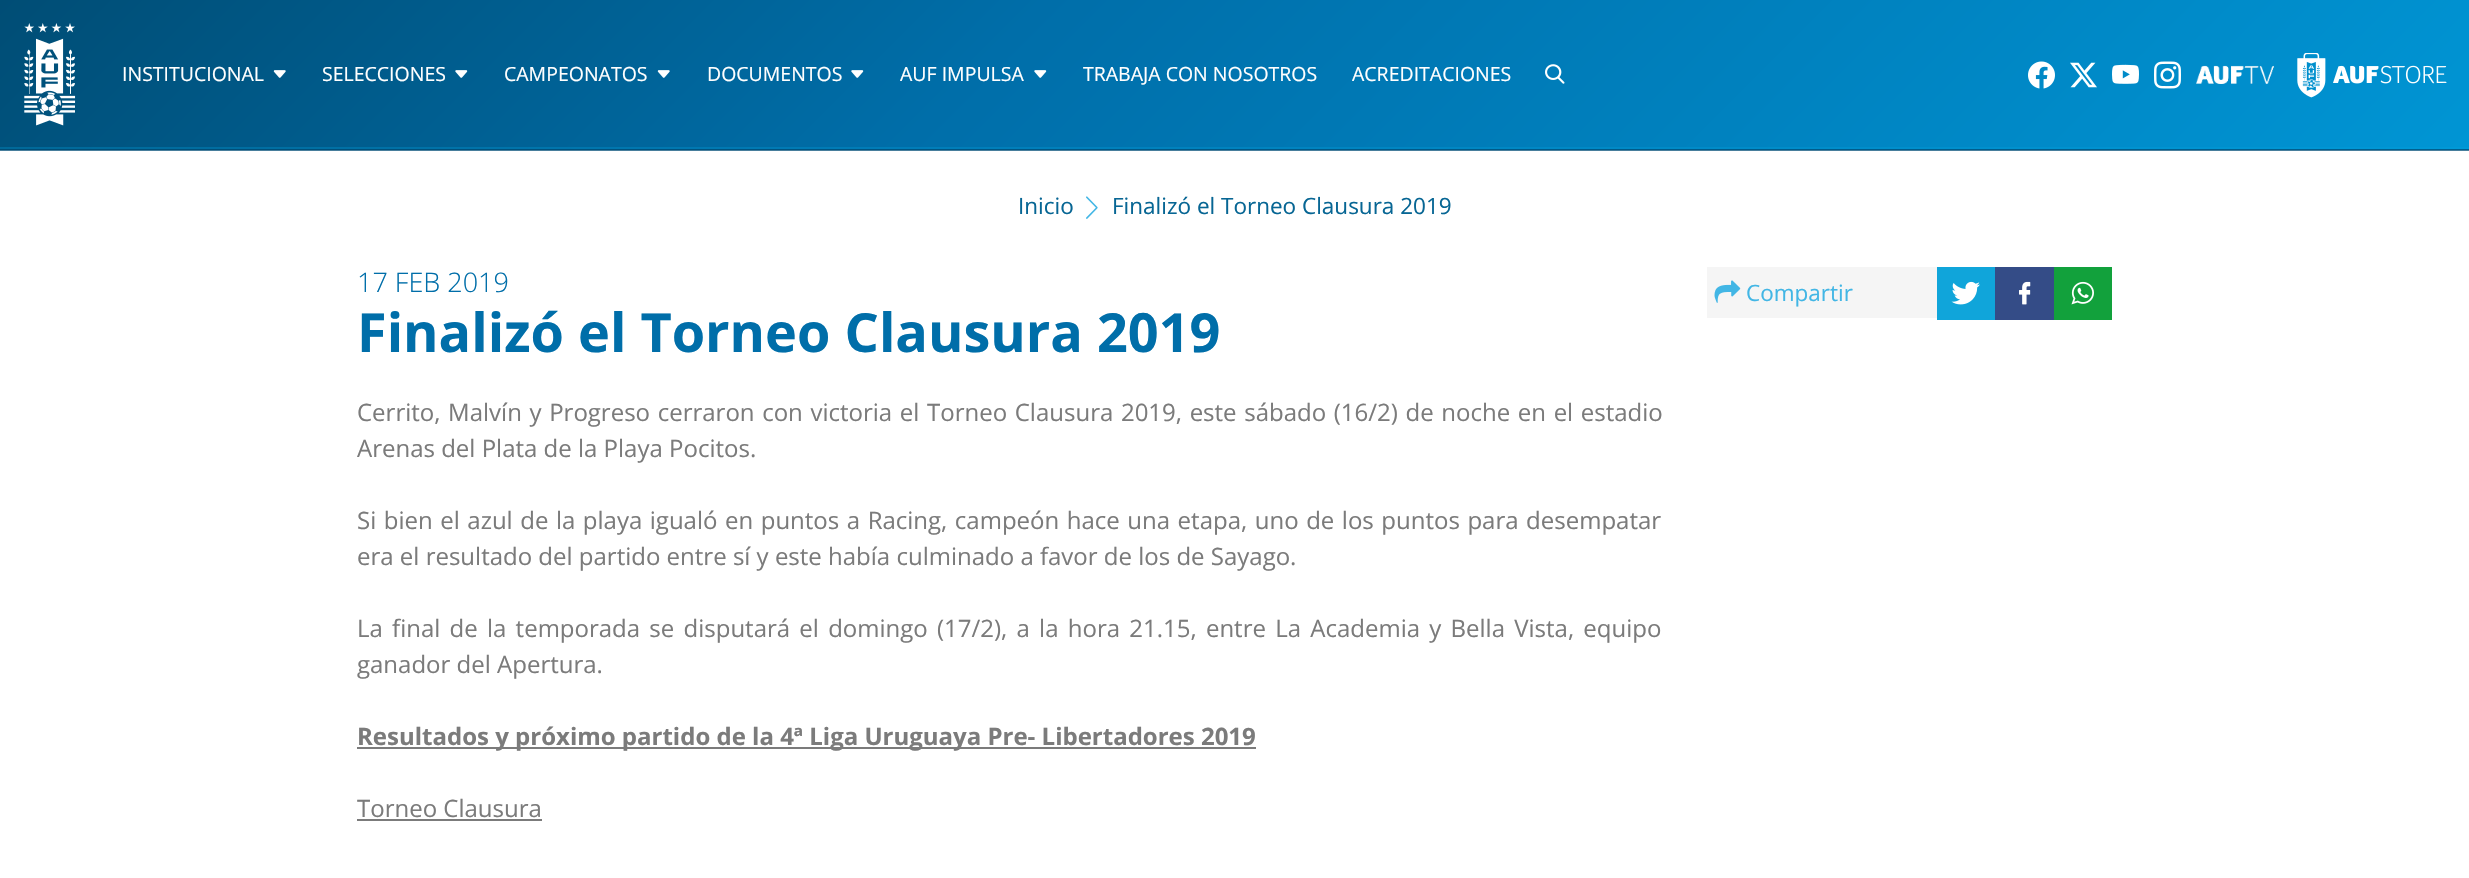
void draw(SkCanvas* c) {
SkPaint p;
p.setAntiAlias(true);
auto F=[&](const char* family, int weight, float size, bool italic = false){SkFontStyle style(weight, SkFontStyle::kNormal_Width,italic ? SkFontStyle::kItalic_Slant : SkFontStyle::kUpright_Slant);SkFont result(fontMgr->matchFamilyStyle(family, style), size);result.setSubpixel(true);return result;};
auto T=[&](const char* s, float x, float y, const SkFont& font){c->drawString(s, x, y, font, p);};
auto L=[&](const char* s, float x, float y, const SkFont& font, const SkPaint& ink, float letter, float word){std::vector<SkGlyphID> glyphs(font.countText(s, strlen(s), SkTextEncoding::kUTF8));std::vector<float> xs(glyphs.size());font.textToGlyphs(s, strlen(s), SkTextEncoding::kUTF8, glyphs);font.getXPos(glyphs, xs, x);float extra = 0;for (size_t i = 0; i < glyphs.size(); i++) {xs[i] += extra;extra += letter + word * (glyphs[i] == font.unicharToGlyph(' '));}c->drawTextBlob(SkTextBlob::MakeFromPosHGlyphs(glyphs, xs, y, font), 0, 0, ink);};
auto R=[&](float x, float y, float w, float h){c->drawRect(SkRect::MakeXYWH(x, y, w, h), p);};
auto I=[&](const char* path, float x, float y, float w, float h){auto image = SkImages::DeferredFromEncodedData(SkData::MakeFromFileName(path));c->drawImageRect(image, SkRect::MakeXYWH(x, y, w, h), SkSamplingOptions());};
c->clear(0xffffffff);
p.setColor(0xff477e9c);
R(0,150,2469,1);
{
const SkColor colors[] = {0xff004d75,0xff006ea9,0xff0095d4};
const float stops[] = {0,.4,1};
const SkPoint ends[] = {{580,-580}, {1889,729}};
p.setShader(SkGradientShader::MakeLinear(ends, colors, stops, 3, SkTileMode::kClamp));
p.setAlpha(255);
}
R(0,0,2469,147);
{
const SkColor colors[] = {0xff006593,0xff007db8,0xff0099d7};
const float stops[] = {0,.4,1};
const SkPoint ends[] = {{580,-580}, {1889,729}};
p.setShader(SkGradientShader::MakeLinear(ends, colors, stops, 3, SkTileMode::kClamp));
p.setAlpha(255);
}
R(0,147,2469,2);
{
const SkColor colors[] = {0xff004c75,0xff005684,0xff006090};
const float stops[] = {0,.4,1};
const SkPoint ends[] = {{580,-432}, {1889,877}};
p.setShader(SkGradientShader::MakeLinear(ends, colors, stops, 3, SkTileMode::kClamp));
p.setAlpha(255);
}
R(0,149,2469,1);
I("1.png",24,23,52,103);
auto f1 = F("Open Sans",400,19.5);
p.setShader(nullptr);
p.setColor(0xffffffff);
T("INSTITUCIONAL",122,81,f1);
I("2.png",273,70,13,8);
T("SELECCIONES",322,81,f1);
I("3.png",455,70,13,8);
T("CAMPEONATOS",504,81,f1);
I("4.png",657,70,13,8);
T("DOCUMENTOS",707,81,f1);
I("5.png",851,70,13,8);
T("AUF IMPULSA",900,81,f1);
I("6.png",1034,70,13,8);
T("TRABAJA CON NOSOTROS",1083,81,f1);
T("ACREDITACIONES",1352,81,f1);
I("7.png",1545,64,20,20);
I("8.png",2028,61,27,28);
I("9.png",2070,62,27,26);
I("10.png",2112,64,27,20);
I("11.png",2154,61,27,28);
I("12.png",2196,65,78,19);
I("13.png",2297,53,150,45);
auto f2 = F("Open Sans",400,22.5);
p.setColor(0xff076694);
T("Inicio",1018,214,f2);
I("14.png",1086,196,12,23);
T("Finalizó el Torneo Clausura 2019",1112,214,f2);
auto f3 = F("Open Sans",300,27);
p.setColor(0xff006ea9);
T("17 FEB 2019",357,292,f3);
auto f4 = F("Open Sans",700,54);
T("Finalizó el Torneo Clausura 2019",357,352,f4);
auto f5 = F("Open Sans",400,24);
p.setColor(0xff7b7b7b);
L("Cerrito, Malvín y Progreso cerraron con victoria el Torneo Clausura 2019, este sábado (16/2) de noche en el estadio",357,421,f5,p,0,1.4);
T("Arenas del Plata de la Playa Pocitos.",357,457,f5);
L("Si bien el azul de la playa igualó en puntos a Racing, campeón hace una etapa, uno de los puntos para desempatar",357,529,f5,p,0,1.3);
T("era el resultado del partido entre sí y este había culminado a favor de los de Sayago.",357,565,f5);
L("La final de la temporada se disputará el domingo (17/2), a la hora 21.15, entre La Academia y Bella Vista, equipo",357,637,f5,p,0,3);
T("ganador del Apertura.",357,673,f5);
R(357,747,899,2);
auto f6 = F("Open Sans",700,24);
T("Resultados y próximo partido de la 4ª Liga Uruguaya Pre- Libertadores 2019",357,745,f6);
T("Torneo Clausura",357,817,f5);
R(357,819,185,2);
p.setColor(0xfff5f5f5);
R(1707,267,230,51);
I("15.png",1714,280,27,23);
p.setColor(0xff42b6e5);
T("Compartir",1746,301,f2);
p.setColor(0xff10a5da);
R(1937,267,58,53);
I("16.png",1951,281,29,24);
p.setColor(0xff344c87);
R(1995,267,59,53);
I("17.png",2019,281,12,24);
p.setColor(0xff12a13c);
R(2054,267,58,53);
I("18.png",2071,281,23,24);
}
